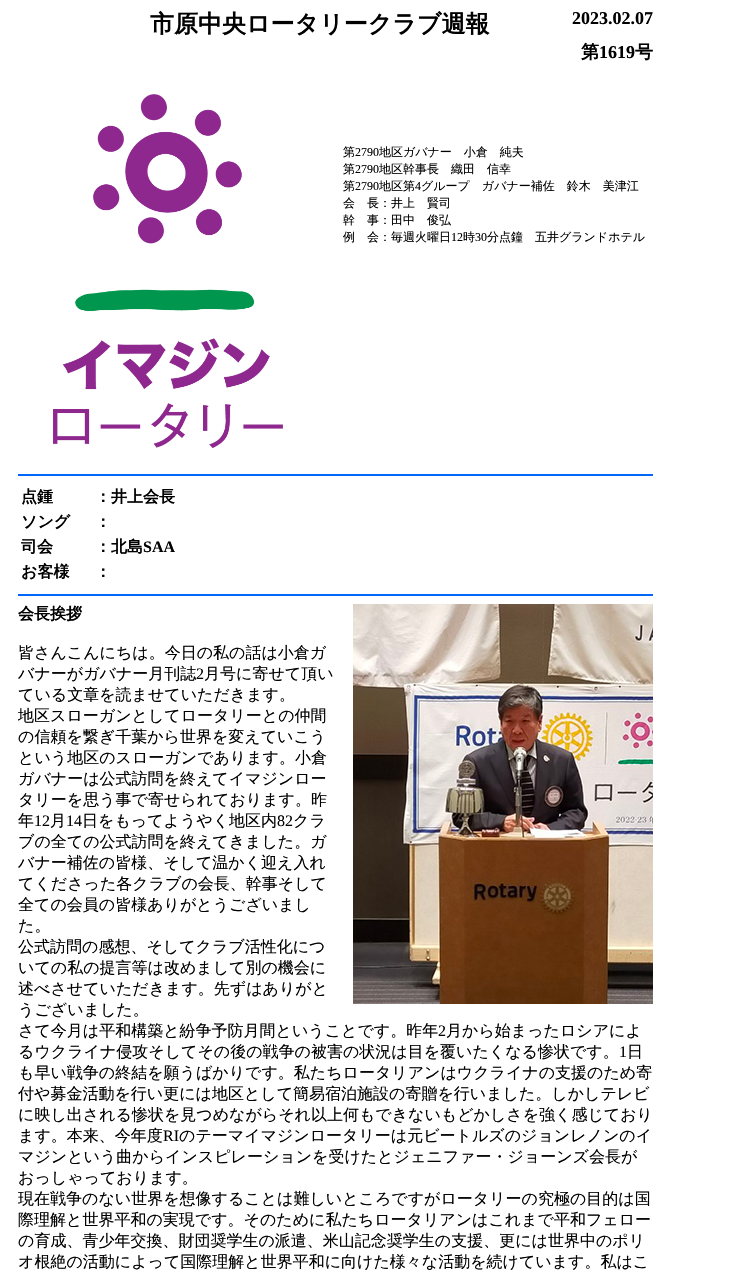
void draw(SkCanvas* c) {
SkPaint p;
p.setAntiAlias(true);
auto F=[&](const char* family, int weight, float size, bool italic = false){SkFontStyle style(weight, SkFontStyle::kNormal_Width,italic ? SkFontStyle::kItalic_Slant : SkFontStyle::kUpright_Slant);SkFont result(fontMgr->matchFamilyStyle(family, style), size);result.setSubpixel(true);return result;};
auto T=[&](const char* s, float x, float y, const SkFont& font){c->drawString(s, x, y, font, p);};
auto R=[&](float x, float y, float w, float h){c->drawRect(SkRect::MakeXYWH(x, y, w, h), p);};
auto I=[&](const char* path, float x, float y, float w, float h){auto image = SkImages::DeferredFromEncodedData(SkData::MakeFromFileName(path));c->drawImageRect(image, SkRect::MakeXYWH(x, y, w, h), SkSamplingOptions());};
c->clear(0xffffffff);
auto f1 = F("WenQuanYi Zen Hei",700,24);
p.setColor(0xff000000);
T("市原中央ロータリークラブ週報",150,32,f1);
auto f2 = F("Liberation Serif",700,18);
T("2023.02.07",572,24,f2);
auto f3 = F("WenQuanYi Zen Hei",700,18);
T("第",581,58,f3);
T("1619",599,58,f2);
T("号",635,58,f3);
I("1.png",53,94,230,354);
auto f4 = F("WenQuanYi Zen Hei",500,12);
T("第",343,156,f4);
auto f5 = F("Liberation Serif",400,12);
T("2790",355,156,f5);
T("地区ガバナー　小倉　純夫",379,156,f4);
T("第",343,173,f4);
T("2790",355,173,f5);
T("地区幹事長　織田　信幸",379,173,f4);
T("第",343,190,f4);
T("2790",355,190,f5);
T("地区第",379,190,f4);
T("4",415,190,f5);
T("グループ　ガバナー補佐　鈴木　美津江",421,190,f4);
T("会　長：井上　賢司",343,207,f4);
T("幹　事：田中　俊弘",343,224,f4);
T("例　会：毎週火曜日",343,241,f4);
T("12",451,241,f5);
T("時",463,241,f4);
T("30",475,241,f5);
T("分点鐘　五井グランドホテル",487,241,f4);
p.setColor(0xff0066fc);
R(18,474,635,2);
auto f6 = F("WenQuanYi Zen Hei",700,16);
p.setColor(0xff000000);
T("点鍾",21,502,f6);
T("：井上会長",95,502,f6);
T("ソング",21,527,f6);
T("：",95,527,f6);
T("司会",21,552,f6);
T("：北島",95,552,f6);
auto f7 = F("Liberation Serif",700,16);
T("SAA",143,552,f7);
T("お客様",21,577,f6);
T("：",95,577,f6);
p.setColor(0xff0066fc);
R(18,594,635,2);
p.setColor(0xff000000);
T("会長挨拶",18,619,f6);
I("2.png",353,604,300,400);
auto f8 = F("WenQuanYi Zen Hei",500,16);
T("皆さんこんにちは。今日の私の話は小倉ガ",18,658,f8);
T("バナーがガバナー月刊誌",18,679,f8);
auto f9 = F("Liberation Serif",400,16);
T("2",196,679,f9);
T("月号に寄せて頂い",204,679,f8);
T("ている文章を読ませていただきます。",18,700,f8);
T("地区スローガンとしてロータリーとの仲間",18,721,f8);
T("の信頼を繋ぎ千葉から世界を変えていこう",18,742,f8);
T("という地区のスローガンであります。小倉",18,763,f8);
T("ガバナーは公式訪問を終えてイマジンロー",18,784,f8);
T("タリーを思う事で寄せられております。昨",18,805,f8);
T("年",18,826,f8);
T("12",34,826,f9);
T("月",50,826,f8);
T("14",66,826,f9);
T("日をもってようやく地区内",82,826,f8);
T("82",277,826,f9);
T("クラ",293,826,f8);
T("ブの全ての公式訪問を終えてきました。ガ",18,847,f8);
T("バナー補佐の皆様、そして温かく迎え入れ",18,868,f8);
T("てくださった各クラブの会長、幹事そして",18,889,f8);
T("全ての会員の皆様ありがとうございまし",18,910,f8);
T("た。",18,931,f8);
T("公式訪問の感想、そしてクラブ活性化につ",18,952,f8);
T("いての私の提言等は改めまして別の機会に",18,973,f8);
T("述べさせていただきます。先ずはありがと",18,994,f8);
T("うございました。",18,1015,f8);
T("さて今月は平和構築と紛争予防月間ということです。昨年",18,1036,f8);
T("2",438,1036,f9);
T("月から始まったロシアによ",446,1036,f8);
T("るウクライナ侵攻そしてその後の戦争の被害の状況は目を覆いたくなる惨状です。",18,1057,f8);
T("1",619,1057,f9);
T("日",627,1057,f8);
T("も早い戦争の終結を願うばかりです。私たちロータリアンはウクライナの支援のため寄",18,1078,f8);
T("付や募金活動を行い更には地区として簡易宿泊施設の寄贈を行いました。しかしテレビ",18,1099,f8);
T("に映し出される惨状を見つめながらそれ以上何もできないもどかしさを強く感じており",18,1120,f8);
T("ます。本来、今年度",18,1141,f8);
T("RI",163,1141,f9);
T("のテーマイマジンロータリーは元ビートルズのジョンレノンのイ",179,1141,f8);
T("マジンという曲からインスピレーションを受けたとジェニファー・ジョーンズ会長が",18,1162,f8);
T("おっしゃっております。",18,1183,f8);
T("現在戦争のない世界を想像することは難しいところですがロータリーの究極の目的は国",18,1204,f8);
T("際理解と世界平和の実現です。そのために私たちロータリアンはこれまで平和フェロー",18,1225,f8);
T("の育成、青少年交換、財団奨学生の派遣、米山記念奨学生の支援、更には世界中のポリ",18,1246,f8);
T("オ根絶の活動によって国際理解と世界平和に向けた様々な活動を続けています。私はこ",18,1267,f8);
}
